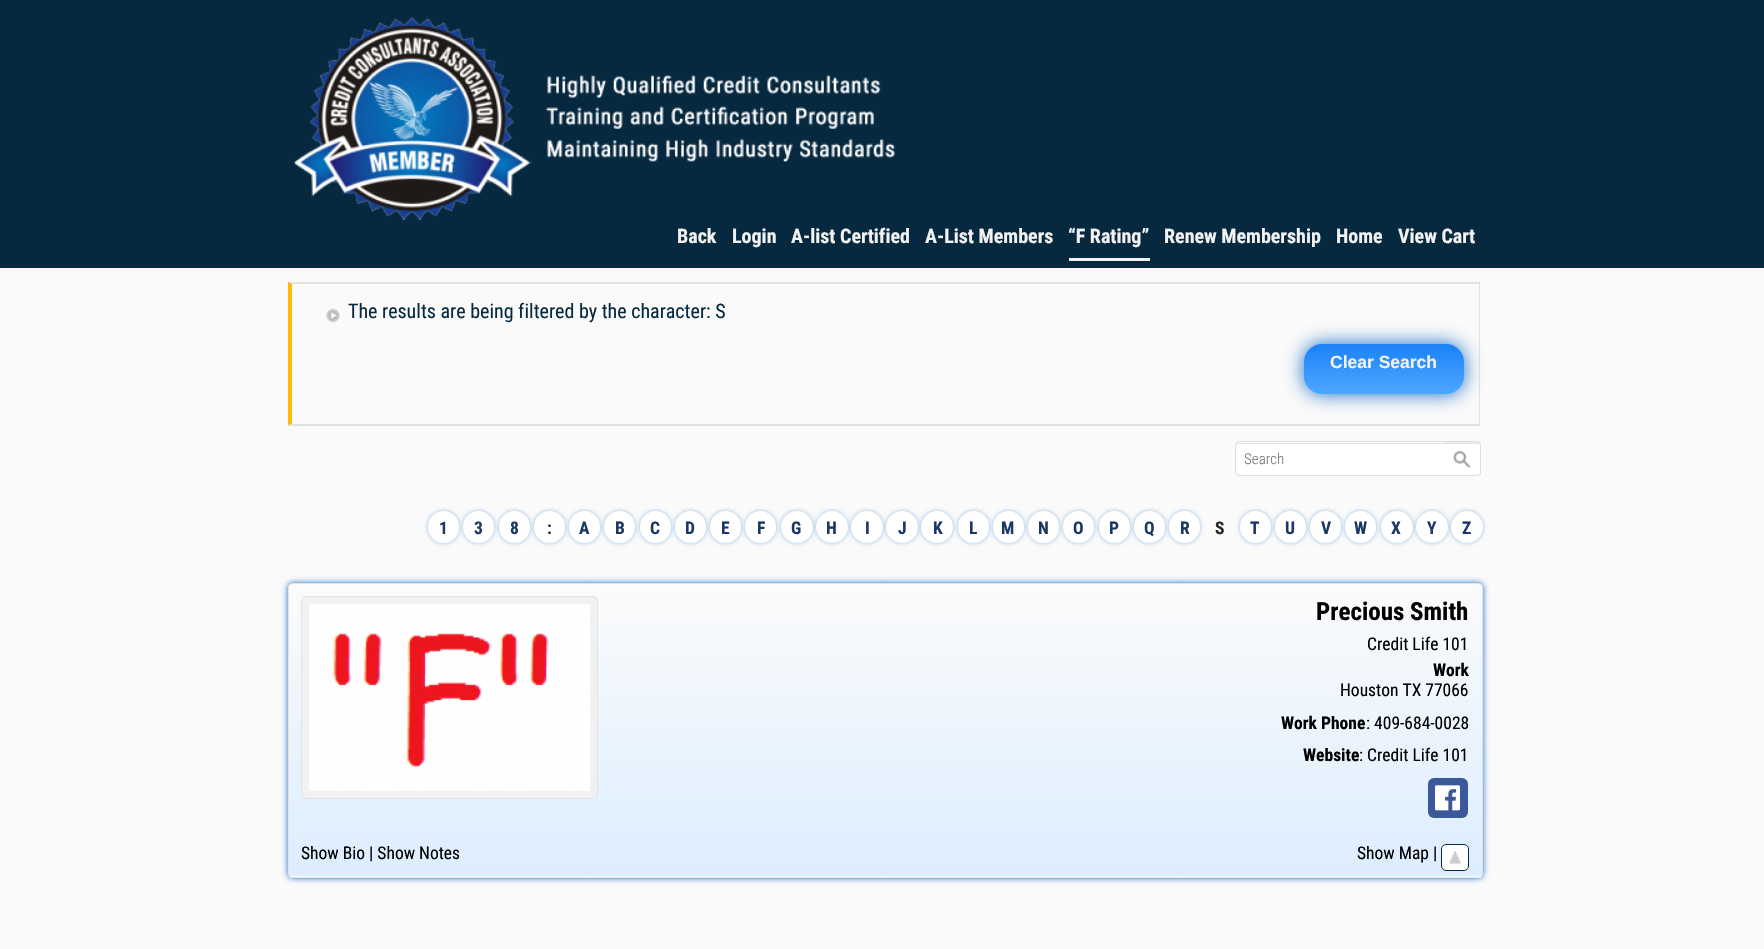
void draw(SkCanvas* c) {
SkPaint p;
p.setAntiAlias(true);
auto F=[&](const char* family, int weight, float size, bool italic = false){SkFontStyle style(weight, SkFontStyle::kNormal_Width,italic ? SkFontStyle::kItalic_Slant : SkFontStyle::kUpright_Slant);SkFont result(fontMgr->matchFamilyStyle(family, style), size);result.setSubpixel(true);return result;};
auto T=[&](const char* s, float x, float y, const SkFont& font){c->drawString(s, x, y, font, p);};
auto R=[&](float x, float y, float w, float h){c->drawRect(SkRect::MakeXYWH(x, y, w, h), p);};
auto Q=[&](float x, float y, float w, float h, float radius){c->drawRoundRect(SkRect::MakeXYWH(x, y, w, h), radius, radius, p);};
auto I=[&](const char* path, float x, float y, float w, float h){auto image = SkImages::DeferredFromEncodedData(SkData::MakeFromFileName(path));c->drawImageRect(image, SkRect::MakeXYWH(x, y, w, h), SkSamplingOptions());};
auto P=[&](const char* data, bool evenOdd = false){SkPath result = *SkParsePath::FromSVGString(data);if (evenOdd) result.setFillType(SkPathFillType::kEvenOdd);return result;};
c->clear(0xfffafafa);
p.setColor(0xff062940);
R(0,0,1764,268);
I("1.png",293,17,603,204);
auto f1 = F("Roboto Condensed",700,20);
p.setColor(0xfff3f2f2);
T("Back",677,243,f1);
T("Login",732,243,f1);
T("A-list Certified",791,243,f1);
T("A-List Members",925,243,f1);
T("“F Rating”",1068,243,f1);
R(1069,258,81,3);
T("Renew Membership",1164,243,f1);
T("Home",1336,243,f1);
T("View Cart",1398,243,f1);
c->save();
c->clipRect(SkRect::MakeXYWH(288,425,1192,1));
p.setColor(0x1a000000);
p.setMaskFilter(SkMaskFilter::MakeBlur(kNormal_SkBlurStyle, .5));
c->drawRect(SkRect::MakeXYWH(288,284,1192,142),p);
p.setMaskFilter(nullptr);
c->restore();
p.setColor(0xffe1e1e1);
c->drawPath(P("M288 282h1192l-1 2h-1187z"),p);
p.setColor(0x1a000000);
c->drawPath(P("M1480 282v143l-1-1v-140z"),p);
c->drawPath(P("M1480 425h-1192l4-1h1187z"),p);
p.setColor(0xffffba00);
c->drawPath(P("M288 425v-143l4 2v140z"),p);
I("2.png",326,308,14,15);
auto f2 = F("Roboto Condensed",400,20);
p.setColor(0xff062940);
T("The results are being filtered by the character: S",348,318,f2);
p.setColor(0xff156cc9);
p.setMaskFilter(SkMaskFilter::MakeBlur(kNormal_SkBlurStyle, 9.5));
c->drawRoundRect(SkRect::MakeXYWH(1304,344,160,50),18,18,p);
p.setMaskFilter(nullptr);
{
const SkColor colors[] = {0xff1a82f7,0xff4ea7ff};
const float stops[] = {0,1};
const SkPoint ends[] = {{1384,344}, {1384,394}};
p.setShader(SkGradientShader::MakeLinear(ends, colors, stops, 2, SkTileMode::kClamp));
p.setAlpha(255);
}
Q(1304,344,160,50,18);
auto f3 = F("Liberation Sans",700,17.5);
p.setShader(nullptr);
p.setColor(0xfff3f2f2);
T("Clear Search",1330,368,f3);
p.setColor(0xffffffff);
c->drawPath(P("M1238.5 443h205.5v32h-205.5c-1.5 0-2.5-1-2.5-2.5v-27c0-1.5 1-2.5 2.5-2.5z"),p);
p.setColor(0xffe5e5e5);
c->drawPath(P("M1239 444h205v-1h-206c-1 0-2 1-2 3c0-1 1-2 3-2z"),p);
p.setColor(0xffdfdfdf);
c->drawPath(P("M1239 441h205v35h-205c-2 0-4-1-4-4v-27c0-2 2-4 4-4zm0 1h205v33h-205c-2 0-3-1-3-3v-27c0-1 1-3 3-3z",true),p);
auto f4 = F("Roboto Condensed",300,15);
p.setColor(0xff757575);
T("Search",1244,464,f4);
p.setColor(0xffffffff);
c->drawPath(P("M1444 443h33.5c1.5 0 2.5 1 2.5 2.5v27c0 1.5-1 2.5-2.5 2.5h-33.5z"),p);
I("3.png",1453,451,18,17);
p.setColor(0xffe5e5e5);
c->drawPath(P("M1444 444h34c1 0 2 1 2 2v-.5c0-1.5-1-2.5-2.5-2.5h-33.5z"),p);
p.setColor(0xffdfdfdf);
c->drawPath(P("M1444 441h33.5c2 0 3.5 2 3.5 4v27.5c0 2-1.5 3.5-3.5 3.5h-33.5zm0 1.5h33.5c1.5 0 2.5 1 2.5 2.5v27.5c0 1.5-1 2.5-2.5 2.5h-33.5z",true),p);
p.setColor(0xff95bbe4);
p.setMaskFilter(SkMaskFilter::MakeBlur(kNormal_SkBlurStyle, 2));
c->drawRoundRect(SkRect::MakeXYWH(428,511,31,32),15.5,15.5,p);
p.setMaskFilter(nullptr);
p.setColor(0xffffffff);
Q(428,511,31,32,15.5);
auto f5 = F("Roboto Condensed",700,17.5);
p.setColor(0xff1a3867);
T("1",439,534,f5);
p.setColor(0xff95bbe4);
p.setMaskFilter(SkMaskFilter::MakeBlur(kNormal_SkBlurStyle, 2));
c->drawRoundRect(SkRect::MakeXYWH(463,511,31,32),15.5,15.5,p);
p.setMaskFilter(nullptr);
p.setColor(0xffffffff);
Q(463,511,31,32,15.5);
p.setColor(0xff1a3867);
T("3",474,534,f5);
p.setColor(0xff95bbe4);
p.setMaskFilter(SkMaskFilter::MakeBlur(kNormal_SkBlurStyle, 2));
c->drawRoundRect(SkRect::MakeXYWH(499,511,31,32),15.5,15.5,p);
p.setMaskFilter(nullptr);
p.setColor(0xffffffff);
Q(499,511,31,32,15.5);
p.setColor(0xff1a3867);
T("8",510,534,f5);
p.setColor(0xff95bbe4);
p.setMaskFilter(SkMaskFilter::MakeBlur(kNormal_SkBlurStyle, 2));
c->drawRoundRect(SkRect::MakeXYWH(534,511,31,32),15.5,15.5,p);
p.setMaskFilter(nullptr);
p.setColor(0xffffffff);
Q(534,511,31,32,15.5);
p.setColor(0xff1a3867);
T(":",547,534,f5);
p.setColor(0xff95bbe4);
p.setMaskFilter(SkMaskFilter::MakeBlur(kNormal_SkBlurStyle, 2));
c->drawRoundRect(SkRect::MakeXYWH(569,511,31,32),15.5,15.5,p);
p.setMaskFilter(nullptr);
p.setColor(0xffffffff);
Q(569,511,31,32,15.5);
p.setColor(0xff1a3867);
T("A",579,534,f5);
p.setColor(0xff95bbe4);
p.setMaskFilter(SkMaskFilter::MakeBlur(kNormal_SkBlurStyle, 2));
c->drawRoundRect(SkRect::MakeXYWH(604,511,31,32),15.5,15.5,p);
p.setMaskFilter(nullptr);
p.setColor(0xffffffff);
Q(604,511,31,32,15.5);
p.setColor(0xff1a3867);
T("B",615,534,f5);
p.setColor(0xff95bbe4);
p.setMaskFilter(SkMaskFilter::MakeBlur(kNormal_SkBlurStyle, 2));
c->drawRoundRect(SkRect::MakeXYWH(640,511,31,32),15.5,15.5,p);
p.setMaskFilter(nullptr);
p.setColor(0xffffffff);
Q(640,511,31,32,15.5);
p.setColor(0xff1a3867);
T("C",650,534,f5);
p.setColor(0xff95bbe4);
p.setMaskFilter(SkMaskFilter::MakeBlur(kNormal_SkBlurStyle, 2));
c->drawRoundRect(SkRect::MakeXYWH(675,511,31,32),15.5,15.5,p);
p.setMaskFilter(nullptr);
p.setColor(0xffffffff);
Q(675,511,31,32,15.5);
p.setColor(0xff1a3867);
T("D",685,534,f5);
p.setColor(0xff95bbe4);
p.setMaskFilter(SkMaskFilter::MakeBlur(kNormal_SkBlurStyle, 2));
c->drawRoundRect(SkRect::MakeXYWH(710,511,31,32),15.5,15.5,p);
p.setMaskFilter(nullptr);
p.setColor(0xffffffff);
Q(710,511,31,32,15.5);
p.setColor(0xff1a3867);
T("E",721,534,f5);
p.setColor(0xff95bbe4);
p.setMaskFilter(SkMaskFilter::MakeBlur(kNormal_SkBlurStyle, 2));
c->drawRoundRect(SkRect::MakeXYWH(745,511,31,32),15.5,15.5,p);
p.setMaskFilter(nullptr);
p.setColor(0xffffffff);
Q(745,511,31,32,15.5);
p.setColor(0xff1a3867);
T("F",757,534,f5);
p.setColor(0xff95bbe4);
p.setMaskFilter(SkMaskFilter::MakeBlur(kNormal_SkBlurStyle, 2));
c->drawRoundRect(SkRect::MakeXYWH(781,511,32,32),16,16,p);
p.setMaskFilter(nullptr);
p.setColor(0xffffffff);
c->drawCircle(797,527,16,p);
p.setColor(0xff1a3867);
T("G",791,534,f5);
p.setColor(0xff95bbe4);
p.setMaskFilter(SkMaskFilter::MakeBlur(kNormal_SkBlurStyle, 2));
c->drawRoundRect(SkRect::MakeXYWH(816,511,32,32),16,16,p);
p.setMaskFilter(nullptr);
p.setColor(0xffffffff);
c->drawCircle(832,527,16,p);
p.setColor(0xff1a3867);
T("H",826,534,f5);
p.setColor(0xff95bbe4);
p.setMaskFilter(SkMaskFilter::MakeBlur(kNormal_SkBlurStyle, 2));
c->drawRoundRect(SkRect::MakeXYWH(851,511,32,32),16,16,p);
p.setMaskFilter(nullptr);
p.setColor(0xffffffff);
c->drawCircle(867,527,16,p);
p.setColor(0xff1a3867);
T("I",865,534,f5);
p.setColor(0xff95bbe4);
p.setMaskFilter(SkMaskFilter::MakeBlur(kNormal_SkBlurStyle, 2));
c->drawRoundRect(SkRect::MakeXYWH(886,511,32,32),16,16,p);
p.setMaskFilter(nullptr);
p.setColor(0xffffffff);
c->drawCircle(902,527,16,p);
p.setColor(0xff1a3867);
T("J",898,534,f5);
p.setColor(0xff95bbe4);
p.setMaskFilter(SkMaskFilter::MakeBlur(kNormal_SkBlurStyle, 2));
c->drawRoundRect(SkRect::MakeXYWH(921,511,32,32),16,16,p);
p.setMaskFilter(nullptr);
p.setColor(0xffffffff);
c->drawCircle(937,527,16,p);
p.setColor(0xff1a3867);
T("K",933,534,f5);
p.setColor(0xff95bbe4);
p.setMaskFilter(SkMaskFilter::MakeBlur(kNormal_SkBlurStyle, 2));
c->drawRoundRect(SkRect::MakeXYWH(958,511,31,32),15.5,15.5,p);
p.setMaskFilter(nullptr);
p.setColor(0xffffffff);
Q(958,511,31,32,15.5);
p.setColor(0xff1a3867);
T("L",969,534,f5);
p.setColor(0xff95bbe4);
p.setMaskFilter(SkMaskFilter::MakeBlur(kNormal_SkBlurStyle, 2));
c->drawRoundRect(SkRect::MakeXYWH(993,511,31,32),15.5,15.5,p);
p.setMaskFilter(nullptr);
p.setColor(0xffffffff);
Q(993,511,31,32,15.5);
p.setColor(0xff1a3867);
T("M",1001,534,f5);
p.setColor(0xff95bbe4);
p.setMaskFilter(SkMaskFilter::MakeBlur(kNormal_SkBlurStyle, 2));
c->drawRoundRect(SkRect::MakeXYWH(1028,511,31,32),15.5,15.5,p);
p.setMaskFilter(nullptr);
p.setColor(0xffffffff);
Q(1028,511,31,32,15.5);
p.setColor(0xff1a3867);
T("N",1038,534,f5);
p.setColor(0xff95bbe4);
p.setMaskFilter(SkMaskFilter::MakeBlur(kNormal_SkBlurStyle, 2));
c->drawRoundRect(SkRect::MakeXYWH(1063,511,31,32),15.5,15.5,p);
p.setMaskFilter(nullptr);
p.setColor(0xffffffff);
Q(1063,511,31,32,15.5);
p.setColor(0xff1a3867);
T("O",1073,534,f5);
p.setColor(0xff95bbe4);
p.setMaskFilter(SkMaskFilter::MakeBlur(kNormal_SkBlurStyle, 2));
c->drawRoundRect(SkRect::MakeXYWH(1099,511,31,32),15.5,15.5,p);
p.setMaskFilter(nullptr);
p.setColor(0xffffffff);
Q(1099,511,31,32,15.5);
p.setColor(0xff1a3867);
T("P",1109,534,f5);
p.setColor(0xff95bbe4);
p.setMaskFilter(SkMaskFilter::MakeBlur(kNormal_SkBlurStyle, 2));
c->drawRoundRect(SkRect::MakeXYWH(1134,511,31,32),15.5,15.5,p);
p.setMaskFilter(nullptr);
p.setColor(0xffffffff);
Q(1134,511,31,32,15.5);
p.setColor(0xff1a3867);
T("Q",1144,534,f5);
p.setColor(0xff95bbe4);
p.setMaskFilter(SkMaskFilter::MakeBlur(kNormal_SkBlurStyle, 2));
c->drawRoundRect(SkRect::MakeXYWH(1169,511,31,32),15.5,15.5,p);
p.setMaskFilter(nullptr);
p.setColor(0xffffffff);
Q(1169,511,31,32,15.5);
p.setColor(0xff1a3867);
T("R",1180,534,f5);
p.setColor(0xff23282d);
T("S",1215,534,f5);
p.setColor(0xff95bbe4);
p.setMaskFilter(SkMaskFilter::MakeBlur(kNormal_SkBlurStyle, 2));
c->drawRoundRect(SkRect::MakeXYWH(1240,511,31,32),15.5,15.5,p);
p.setMaskFilter(nullptr);
p.setColor(0xffffffff);
Q(1240,511,31,32,15.5);
p.setColor(0xff1a3867);
T("T",1250,534,f5);
p.setColor(0xff95bbe4);
p.setMaskFilter(SkMaskFilter::MakeBlur(kNormal_SkBlurStyle, 2));
c->drawRoundRect(SkRect::MakeXYWH(1275,511,31,32),15.5,15.5,p);
p.setMaskFilter(nullptr);
p.setColor(0xffffffff);
Q(1275,511,31,32,15.5);
p.setColor(0xff1a3867);
T("U",1285,534,f5);
p.setColor(0xff95bbe4);
p.setMaskFilter(SkMaskFilter::MakeBlur(kNormal_SkBlurStyle, 2));
c->drawRoundRect(SkRect::MakeXYWH(1310,511,31,32),15.5,15.5,p);
p.setMaskFilter(nullptr);
p.setColor(0xffffffff);
Q(1310,511,31,32,15.5);
p.setColor(0xff1a3867);
T("V",1321,534,f5);
p.setColor(0xff95bbe4);
p.setMaskFilter(SkMaskFilter::MakeBlur(kNormal_SkBlurStyle, 2));
c->drawRoundRect(SkRect::MakeXYWH(1345,511,31,32),15.5,15.5,p);
p.setMaskFilter(nullptr);
p.setColor(0xffffffff);
Q(1345,511,31,32,15.5);
p.setColor(0xff1a3867);
T("W",1354,534,f5);
p.setColor(0xff95bbe4);
p.setMaskFilter(SkMaskFilter::MakeBlur(kNormal_SkBlurStyle, 2));
c->drawRoundRect(SkRect::MakeXYWH(1381,511,32,32),16,16,p);
p.setMaskFilter(nullptr);
p.setColor(0xffffffff);
c->drawCircle(1397,527,16,p);
p.setColor(0xff1a3867);
T("X",1391,534,f5);
p.setColor(0xff95bbe4);
p.setMaskFilter(SkMaskFilter::MakeBlur(kNormal_SkBlurStyle, 2));
c->drawRoundRect(SkRect::MakeXYWH(1416,511,32,32),16,16,p);
p.setMaskFilter(nullptr);
p.setColor(0xffffffff);
c->drawCircle(1432,527,16,p);
p.setColor(0xff1a3867);
T("Y",1427,534,f5);
p.setColor(0xff95bbe4);
p.setMaskFilter(SkMaskFilter::MakeBlur(kNormal_SkBlurStyle, 2));
c->drawRoundRect(SkRect::MakeXYWH(1451,511,32,32),16,16,p);
p.setMaskFilter(nullptr);
p.setColor(0xffffffff);
c->drawCircle(1467,527,16,p);
p.setColor(0xff1a3867);
T("Z",1462,534,f5);
p.setColor(0xff156cc9);
p.setMaskFilter(SkMaskFilter::MakeBlur(kNormal_SkBlurStyle, 3));
c->drawRoundRect(SkRect::MakeXYWH(288,583,1195,295),5,5,p);
p.setMaskFilter(nullptr);
c->save();
c->clipPath(P("M293 583h1185c3 0 5 2 5 5v285c0 3-2 5-5 5h-1185c-3 0-5-2-5-5v-285c0-3 2-5 5-5z"),true);
{
const SkColor colors[] = {0xfffbfbfb,0xffdcedff};
const float stops[] = {0,1};
const SkPoint ends[] = {{885,584}, {885,876}};
p.setShader(SkGradientShader::MakeLinear(ends, colors, stops, 2, SkTileMode::kClamp));
p.setAlpha(255);
}
R(288,584,1195,292);
{
const SkColor colors[] = {0xfffbfbfb,0xffdcedff};
const float stops[] = {0,1};
const SkPoint ends[] = {{885,876}, {885,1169}};
p.setShader(SkGradientShader::MakeLinear(ends, colors, stops, 2, SkTileMode::kClamp));
p.setAlpha(255);
}
R(288,876,1195,2);
c->restore();
p.setStroke(true);
p.setStrokeWidth(1);
p.setShader(nullptr);
p.setColor(0xffe3e3e3);
c->drawRoundRect(SkRect::MakeXYWH(288.5,583.5,1194,294),4.5,4.5,p);
p.setStroke(false);
p.setColor(0xfff1f1f1);
c->drawRoundRect(SkRect::MakeXYWH(301.5,596.5,296,202),4.5,4.5,p);
p.setStroke(true);
p.setColor(0xffe3e3e3);
c->drawRoundRect(SkRect::MakeXYWH(301.5,596.5,296,202),4.5,4.5,p);
I("4.png",309,604,281,187);
auto f6 = F("Roboto Condensed",700,25);
p.setStroke(false);
p.setColor(0xff000000);
T("Precious Smith",1316,620,f6);
auto f7 = F("Roboto Condensed",400,17.5);
T("Credit Life 101",1367,650,f7);
T("Work",1433,676,f5);
T("Houston TX 77066",1340,696,f7);
T("Work Phone",1281,729,f5);
T(": 409-684-0028",1366,729,f7);
T("Website",1303,761,f5);
T(": Credit Life 101",1359,761,f7);
p.setColor(0xff3b5998);
Q(1428,778,40,40,6);
I("5.png",1435,785,25,26);
p.setColor(0xff000000);
T("Show Bio | Show Notes",301,859,f7);
T("Show Map |",1357,859,f7);
p.setColor(0xffffffff);
c->drawRoundRect(SkRect::MakeXYWH(1441.5,844.5,27,26),4.5,4.5,p);
p.setStroke(true);
p.setColor(0xff062940);
c->drawRoundRect(SkRect::MakeXYWH(1441.5,844.5,27,26),4.5,4.5,p);
I("6.png",1449,851,12,13);
}
